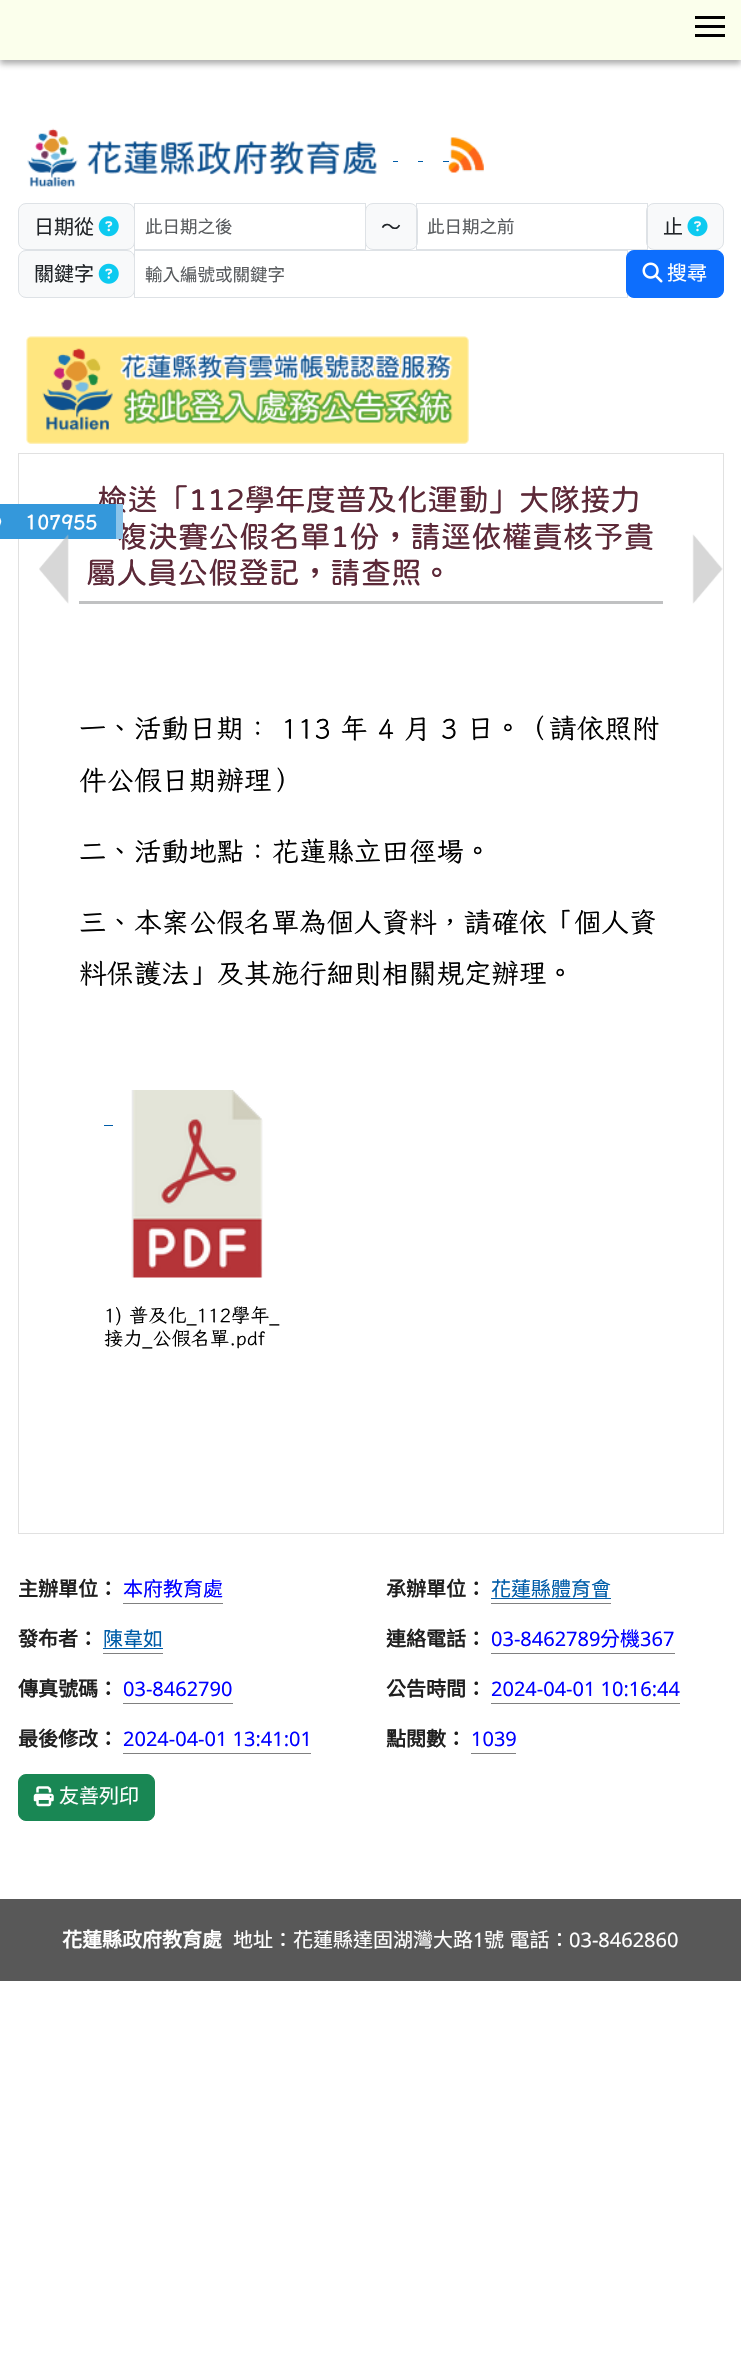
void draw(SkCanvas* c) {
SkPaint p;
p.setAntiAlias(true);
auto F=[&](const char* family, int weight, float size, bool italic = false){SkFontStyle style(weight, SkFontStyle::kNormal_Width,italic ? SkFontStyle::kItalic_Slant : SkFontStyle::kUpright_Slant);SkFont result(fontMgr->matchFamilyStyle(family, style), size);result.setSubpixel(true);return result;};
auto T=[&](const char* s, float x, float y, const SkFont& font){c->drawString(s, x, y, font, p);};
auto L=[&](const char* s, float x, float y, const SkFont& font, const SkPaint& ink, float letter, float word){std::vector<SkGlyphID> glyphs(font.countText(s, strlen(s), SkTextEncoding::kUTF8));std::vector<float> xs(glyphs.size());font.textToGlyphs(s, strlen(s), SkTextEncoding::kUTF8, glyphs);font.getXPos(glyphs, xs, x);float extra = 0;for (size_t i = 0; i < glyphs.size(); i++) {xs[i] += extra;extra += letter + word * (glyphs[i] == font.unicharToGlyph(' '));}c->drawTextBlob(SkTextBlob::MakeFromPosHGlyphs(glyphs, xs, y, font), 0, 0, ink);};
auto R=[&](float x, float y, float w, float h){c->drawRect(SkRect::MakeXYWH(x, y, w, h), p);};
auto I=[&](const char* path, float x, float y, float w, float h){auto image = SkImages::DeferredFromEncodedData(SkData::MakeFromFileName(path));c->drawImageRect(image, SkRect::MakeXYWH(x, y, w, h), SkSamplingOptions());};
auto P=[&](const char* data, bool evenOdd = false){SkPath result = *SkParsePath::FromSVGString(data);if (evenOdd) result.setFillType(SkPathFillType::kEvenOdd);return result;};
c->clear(0xffffffff);
p.setColor(0x66323232);
p.setMaskFilter(SkMaskFilter::MakeBlur(kNormal_SkBlurStyle, 3));
c->drawRect(SkRect::MakeXYWH(0,4,741,60),p);
p.setMaskFilter(nullptr);
p.setColor(0xfffbffec);
R(0,0,741,60);
p.setColor(0xff000000);
R(695,25,30,3);
R(695,16,30,3);
R(695,34,30,3);
I("1.png",27,128,350,59);
p.setColor(0xff005ca8);
R(393,161,5,1);
R(418,161,5,1);
R(443,161,6,1);
I("2.png",448,137,36,36);
p.setColor(0xfff8f9fa);
c->drawRoundRect(SkRect::MakeXYWH(18.5,203.5,116,46),7.5,7.5,p);
p.setStroke(true);
p.setStrokeWidth(1);
p.setColor(0xffdee2e6);
c->drawRoundRect(SkRect::MakeXYWH(18.5,203.5,116,46),7.5,7.5,p);
auto f1 = F("Noto Sans CJK TC",400,20);
p.setStroke(false);
p.setColor(0xff212529);
T("日期從",34,234,f1);
I("3.png",98,216,21,21);
p.setColor(0xfff8f9fa);
c->drawRoundRect(SkRect::MakeXYWH(365.5,203.5,52,46),7.5,7.5,p);
p.setStroke(true);
p.setColor(0xffdee2e6);
c->drawRoundRect(SkRect::MakeXYWH(365.5,203.5,52,46),7.5,7.5,p);
c->drawRect(SkRect::MakeXYWH(134.5,203.5,231,46),p);
auto f2 = F("Noto Sans CJK TC",400,17.5);
p.setStroke(false);
p.setColor(0xff595c5f);
T("此日期之後",145,233,f2);
p.setColor(0xff212529);
T("～",381,234,f1);
p.setColor(0xfff8f9fa);
c->drawRoundRect(SkRect::MakeXYWH(646.5,203.5,77,46),7.5,7.5,p);
p.setStroke(true);
p.setColor(0xffdee2e6);
c->drawRoundRect(SkRect::MakeXYWH(646.5,203.5,77,46),7.5,7.5,p);
c->drawRect(SkRect::MakeXYWH(416.5,203.5,231,46),p);
p.setStroke(false);
p.setColor(0xff595c5f);
T("此日期之前",427,233,f2);
p.setColor(0xff212529);
T("止",663,234,f1);
I("4.png",687,216,21,21);
p.setColor(0xfff8f9fa);
c->drawRoundRect(SkRect::MakeXYWH(18.5,250.5,116,47),7.5,7.5,p);
p.setStroke(true);
p.setColor(0xffdee2e6);
c->drawRoundRect(SkRect::MakeXYWH(18.5,250.5,116,47),7.5,7.5,p);
p.setStroke(false);
p.setColor(0xff212529);
T("關鍵字",34,281,f1);
I("5.png",98,263,21,21);
p.setStroke(true);
p.setColor(0xffdee2e6);
c->drawRect(SkRect::MakeXYWH(134.5,250.5,493,47),p);
p.setStroke(false);
p.setColor(0xff595c5f);
T("輸入編號或關鍵字",145,281,f2);
p.setColor(0xff0d6efd);
c->drawRoundRect(SkRect::MakeXYWH(626.5,250.5,97,47),7.5,7.5,p);
p.setStroke(true);
c->drawRoundRect(SkRect::MakeXYWH(626.5,250.5,97,47),7.5,7.5,p);
I("6.png",642,262,21,21);
p.setStroke(false);
p.setColor(0xffffffff);
T("搜尋",667,280,f1);
I("7.png",26,336,443,108);
p.setStroke(true);
p.setColor(0xffe1e1e1);
c->drawRect(SkRect::MakeXYWH(18.5,453.5,705,1080),p);
auto f3 = F("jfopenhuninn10",400,30.5);
p.setStroke(false);
p.setColor(0xff5c2938);
T("檢送「112學年度普及化運動」大隊接力",97,510,f3);
p.setColor(0xff3498db);
R(7,504,109,35);
p.setColor(0xff5c2938);
T("複決賽公假名單1份，請逕依權責核予貴",117,547,f3);
p.setColor(0xff8bc4ea);
R(116,504,7,35);
p.setColor(0xff3498db);
c->drawPath(P("M-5 504h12.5v33.5z"),p);
c->drawPath(P("M7.5 539h-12.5l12.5-34z"),p);
auto f4 = F("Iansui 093",700,20);
p.setColor(0xffffffff);
T("107955",25,529,f4);
I("8.png",39,534,30,70);
p.setColor(0xffc0c1c2);
R(79,601,584,3);
p.setColor(0xff5c2938);
T("屬人員公假登記，請查照。",86,583,f3);
auto f5 = F("Iansui 093",400,27.5);
p.setColor(0xff000000);
T("一、活動日期： 113 年 4 月 3 日。（請依照附",79,738,f5);
T("件公假日期辦理）",79,790,f5);
T("二、活動地點：花蓮縣立田徑場。",79,861,f5);
T("三、本案公假名單為個人資料，請確依「個人資",79,932,f5);
T("料保護法」及其施行細則相關規定辦理。",79,983,f5);
I("9.png",131,1090,132,188);
p.setColor(0xff005ca8);
R(104,1125,9,1);
auto f6 = F("Iansui 093",400,19.25);
p.setColor(0xff000000);
T("1) 普及化_112學年_",104,1322,f6);
T("接力_公假名單.pdf",104,1345,f6);
I("10.png",692,534,31,70);
auto f7 = F("Noto Sans CJK TC",700,20);
p.setColor(0xff202020);
T("主辦單位：",18,1596,f7);
p.setColor(0xff0000ff);
T("本府教育處",123,1596,f1);
p.setColor(0xff808080);
R(123,1603,100,1);
p.setColor(0xff202020);
T("承辦單位：",386,1596,f7);
p.setColor(0xff005ca8);
T("花蓮縣體育會",491,1596,f1);
p.setColor(0xff808080);
R(491,1603,120,1);
p.setColor(0xff005ca8);
R(491,1598,120,1);
p.setColor(0xff202020);
T("發布者：",18,1646,f7);
p.setColor(0xff005ca8);
T("陳韋如",103,1646,f1);
p.setColor(0xff808080);
R(103,1653,60,1);
p.setColor(0xff005ca8);
R(103,1648,60,1);
p.setColor(0xff202020);
T("連絡電話：",386,1646,f7);
auto f8 = F("Noto Sans",400,20);
p.setColor(0xff0000ff);
T("03-8462789",491,1646,f8);
p.setColor(0xff808080);
R(491,1653,184,1);
p.setColor(0xff0000ff);
T("分機",600,1646,f1);
T("367",640,1646,f8);
p.setColor(0xff202020);
T("傳真號碼：",18,1696,f7);
p.setColor(0xff0000ff);
T("03-8462790",123,1696,f8);
p.setColor(0xff808080);
R(123,1703,110,1);
p.setColor(0xff202020);
T("公告時間：",386,1696,f7);
p.setColor(0xff0000ff);
T("2024-04-01 10:16:44",491,1696,f8);
p.setColor(0xff808080);
R(491,1703,189,1);
p.setColor(0xff202020);
T("最後修改：",18,1746,f7);
p.setColor(0xff0000ff);
T("2024-04-01 13:41:01",123,1746,f8);
p.setColor(0xff808080);
R(123,1753,188,1);
p.setColor(0xff202020);
T("點閱數：",386,1746,f7);
p.setColor(0xff0000ff);
T("1039",471,1746,f8);
p.setColor(0xff808080);
R(471,1753,45,1);
p.setColor(0xff198754);
c->drawRoundRect(SkRect::MakeXYWH(18.5,1774.5,136,46),7.5,7.5,p);
p.setStroke(true);
c->drawRoundRect(SkRect::MakeXYWH(18.5,1774.5,136,46),7.5,7.5,p);
I("11.png",33,1786,21,21);
p.setStroke(false);
p.setColor(0xffffffff);
T("友善列印",59,1803,f1);
p.setColor(0xff585858);
R(0,1899,741,82);
p.setColor(0xffffffff);
T("花蓮縣政府教育處",62,1947,f7);
T("地址：花蓮縣達固湖灣大路",233,1947,f1);
T("1",473,1947,f8);
L("號 電話：",484,1947,f1,p,0,1);
T("03-8462860",569,1947,f8);
}
